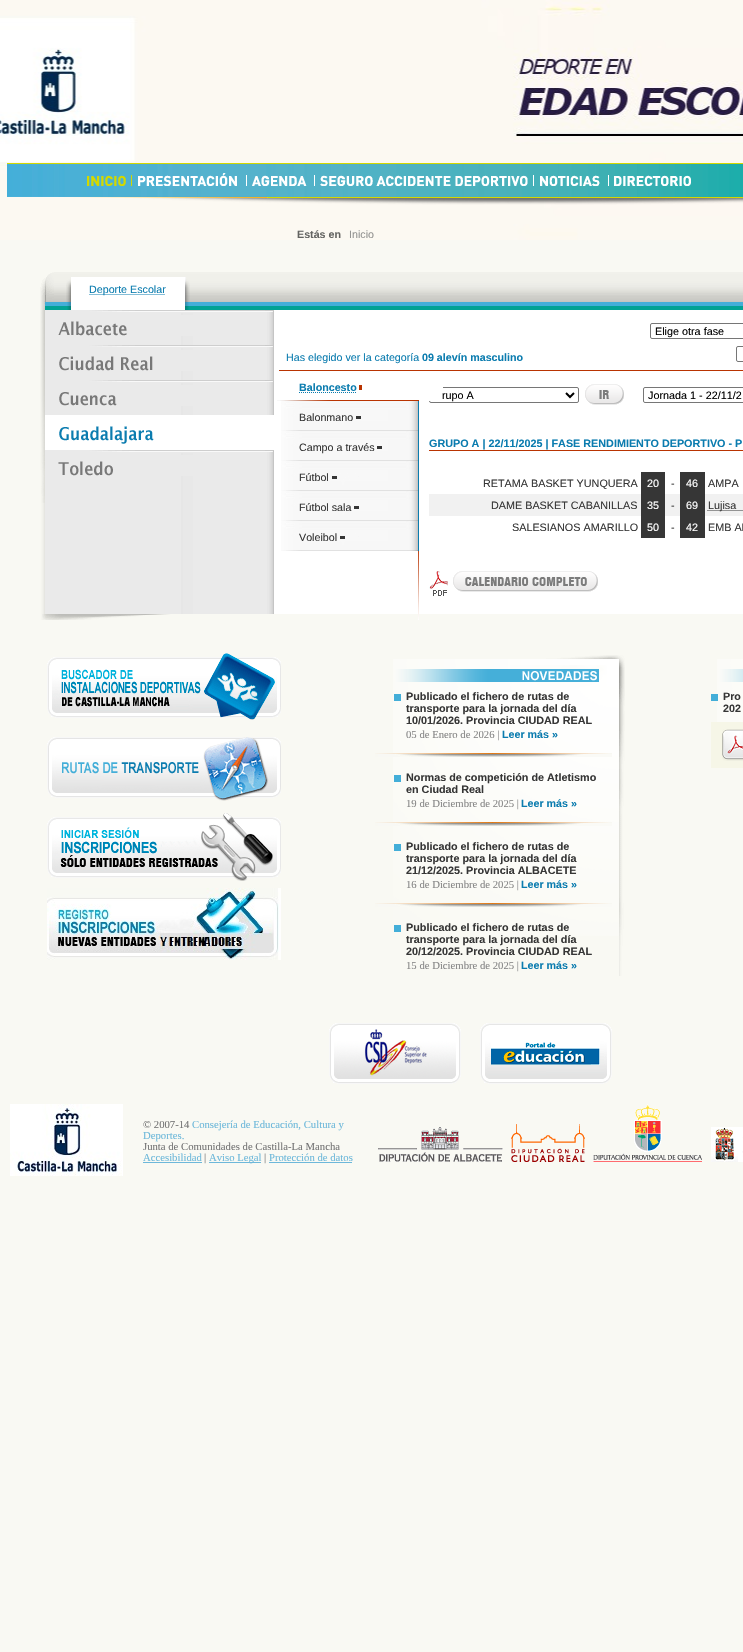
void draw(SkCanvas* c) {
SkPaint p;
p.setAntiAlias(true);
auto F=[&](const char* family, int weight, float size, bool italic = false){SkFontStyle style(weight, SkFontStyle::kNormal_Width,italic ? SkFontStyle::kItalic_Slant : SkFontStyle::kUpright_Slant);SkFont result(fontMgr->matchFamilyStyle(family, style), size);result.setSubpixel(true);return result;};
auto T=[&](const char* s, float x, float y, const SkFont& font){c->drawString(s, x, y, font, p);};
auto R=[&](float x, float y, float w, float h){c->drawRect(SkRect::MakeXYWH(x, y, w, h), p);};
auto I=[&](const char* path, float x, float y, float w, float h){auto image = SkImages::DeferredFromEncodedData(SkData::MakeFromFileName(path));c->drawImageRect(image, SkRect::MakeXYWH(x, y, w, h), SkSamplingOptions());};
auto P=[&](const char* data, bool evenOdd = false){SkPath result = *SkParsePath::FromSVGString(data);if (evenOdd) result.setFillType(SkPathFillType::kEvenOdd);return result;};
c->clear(0xfff9f9f3);
I("1.png",0,0,743,240);
I("2.png",7,163,736,42);
I("3.png",87,175,45,11);
I("4.png",138,173,99,13);
I("5.png",246,175,61,11);
I("6.png",314,175,220,11);
I("7.png",540,175,60,11);
I("8.png",608,175,83,11);
auto f1 = F("Liberation Sans",700,10.7);
p.setColor(0xff646461);
T("Estás en",297,238,f1);
auto f2 = F("Liberation Sans",400,10.7);
p.setColor(0xff949492);
T("Inicio",349,238,f2);
p.setColor(0xffffffff);
R(274,310,469,304);
I("9.png",37,272,237,348);
I("10.png",42,614,701,6);
I("11.png",40,272,5,231);
I("12.png",45,272,698,38);
I("13.png",45,272,9,30);
I("14.png",66,277,124,33);
p.setStroke(true);
p.setStrokeWidth(1);
p.setColor(0xff0b7caf);
p.setPathEffect(SkDashPathEffect::Make({{1,1}}, 0));
c->drawPath(P("M89.5 294.5h76"),p);
p.setPathEffect(nullptr);
p.setStroke(false);
T("Deporte Escolar",89,293,f2);
I("15.png",58,310,215,26);
I("16.png",59,345,214,26);
I("17.png",59,380,214,26);
I("18.png",45,415,229,35);
I("19.png",58,450,215,26);
p.setStroke(true);
p.setColor(0xff767676);
c->drawRoundRect(SkRect::MakeXYWH(650.5,323.5,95,15),1.5,1.5,p);
auto f3 = F("Liberation Sans",400,10.8);
p.setStroke(false);
p.setColor(0xff000000);
T("Elige otra fase",655,335,f3);
p.setColor(0xffb93401);
R(279,370,464,1);
p.setColor(0xff0b7caf);
T("Has elegido ver la categoría",286,361,f2);
T("09 alevín masculino",422,361,f1);
p.setStroke(true);
p.setColor(0xff767676);
c->drawRoundRect(SkRect::MakeXYWH(736.5,346.5,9,15),1.5,1.5,p);
I("20.png",418,551,1,69);
c->drawRoundRect(SkRect::MakeXYWH(429.5,387.5,149,15),1.5,1.5,p);
p.setStroke(false);
p.setColor(0xffffffff);
R(429,387,14,14);
I("21.png",277,400,142,1);
p.setColor(0xff0b7caf);
T("Baloncesto",299,391,f1);
p.setStroke(true);
p.setPathEffect(SkDashPathEffect::Make({{1,1}}, 0));
c->drawPath(P("M299 392.5h57.5"),p);
p.setPathEffect(nullptr);
p.setStroke(false);
p.setColor(0xffb93401);
R(359,385,3,5);
I("22.png",281,401,137,30);
p.setColor(0xff0b7caf);
R(418,401,1,150);
p.setColor(0xff363636);
T("Balonmano",299,421,f2);
R(356,416,5,3);
I("22.png",281,431,137,30);
T("Campo a través",299,451,f2);
R(377,446,5,3);
I("22.png",281,461,137,30);
T("Fútbol",299,481,f2);
R(332,476,5,3);
I("22.png",281,491,137,30);
T("Fútbol sala",299,511,f2);
R(354,506,5,3);
I("22.png",281,521,137,30);
T("Voleibol",299,541,f2);
R(340,536,5,3);
p.setStroke(true);
p.setStrokeWidth(2);
p.setColor(0xff000000);
c->drawPath(P("M566 393l4 4l4-4"),p);
p.setStroke(false);
T("rupo A",442,399,f3);
I("23.png",585,384,39,21);
p.setStroke(true);
p.setStrokeWidth(1);
p.setColor(0xff767676);
c->drawRoundRect(SkRect::MakeXYWH(643.5,387.5,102,15),1.5,1.5,p);
p.setStroke(false);
p.setColor(0xff000000);
T("Jornada 1 - 22/11/2",648,399,f3);
p.setColor(0xffb93401);
R(429,450,314,1);
auto f4 = F("Liberation Sans",700,10.8);
p.setColor(0xff0b7caf);
T("GRUPO A | 22/11/2025 | FASE RENDIMIENTO DEPORTIVO - P",429,447,f4);
p.setColor(0xff363636);
T("RETAMA BASKET YUNQUERA",483,487,f3);
R(641,472,24,22);
p.setColor(0xffffffff);
T("20",647,487,f3);
p.setColor(0xff363636);
T("-",671,487,f3);
R(680,472,25,22);
p.setColor(0xffffffff);
T("46",686,487,f3);
p.setColor(0xff363636);
T("AMPA",708,487,f3);
p.setColor(0xfff1f1f1);
R(429,494,314,22);
p.setColor(0xff363636);
T("DAME BASKET CABANILLAS",491,509,f3);
R(641,494,24,44);
p.setColor(0xffffffff);
T("35",647,509,f3);
p.setColor(0xff363636);
T("-",671,509,f3);
R(680,494,25,44);
p.setColor(0xffffffff);
T("69",686,509,f3);
p.setStroke(true);
p.setColor(0xff363636);
p.setPathEffect(SkDashPathEffect::Make({{1,1}}, 0));
c->drawPath(P("M707.5 510.5h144"),p);
p.setPathEffect(nullptr);
p.setStroke(false);
T("Lujisa",708,509,f3);
T("SALESIANOS AMARILLO",512,531,f3);
p.setColor(0xffffffff);
T("50",647,531,f3);
p.setColor(0xff363636);
T("-",671,531,f3);
p.setColor(0xffffffff);
T("42",686,531,f3);
p.setColor(0xff363636);
T("EMB AL",708,531,f3);
I("24.png",429,571,19,25);
I("25.png",453,571,145,21);
I("26.png",47,653,234,67);
I("27.png",47,737,234,64);
I("28.png",47,813,234,68);
I("29.png",47,888,234,72);
I("30.png",393,655,232,321);
p.setColor(0xff43aed8);
R(394,694,7,7);
p.setColor(0xff363636);
T("Publicado el fichero de rutas de",406,700,f4);
T("transporte para la jornada del día",406,712,f4);
T("10/01/2026. Provincia CIUDAD REAL",406,724,f4);
auto f5 = F("Liberation Serif",400,10.7);
p.setColor(0xff858585);
T("05 de Enero de 2026 |",406,738,f5);
p.setColor(0xff0b7caf);
T("Leer más »",502,738,f1);
I("31.png",375,753,237,4);
p.setColor(0xff43aed8);
R(394,775,7,7);
p.setColor(0xff363636);
T("Normas de competición de Atletismo",406,781,f4);
T("en Ciudad Real",406,793,f4);
p.setColor(0xff858585);
T("19 de Diciembre de 2025 |",406,807,f5);
p.setColor(0xff0b7caf);
T("Leer más »",521,807,f1);
I("31.png",375,822,237,4);
p.setColor(0xff43aed8);
R(394,844,7,7);
p.setColor(0xff363636);
T("Publicado el fichero de rutas de",406,850,f4);
T("transporte para la jornada del día",406,862,f4);
T("21/12/2025. Provincia ALBACETE",406,874,f4);
p.setColor(0xff858585);
T("16 de Diciembre de 2025 |",406,888,f5);
p.setColor(0xff0b7caf);
T("Leer más »",521,888,f1);
I("31.png",375,903,237,4);
p.setColor(0xff43aed8);
R(394,925,7,7);
p.setColor(0xff363636);
T("Publicado el fichero de rutas de",406,931,f4);
T("transporte para la jornada del día",406,943,f4);
T("20/12/2025. Provincia CIUDAD REAL",406,955,f4);
p.setColor(0xff858585);
T("15 de Diciembre de 2025 |",406,969,f5);
p.setColor(0xff0b7caf);
T("Leer más »",521,969,f1);
I("32.png",717,659,26,63);
p.setColor(0xff43aed8);
R(711,694,7,7);
p.setColor(0xff363636);
T("Pro",723,700,f1);
T("202",723,712,f1);
p.setColor(0xfff6f6e7);
R(711,722,32,46);
I("33.png",722,729,21,32);
I("34.png",329,1023,132,61);
I("35.png",480,1023,132,61);
I("36.png",10,1104,113,72);
p.setColor(0xff737373);
T("© 2007-14",143,1128,f5);
p.setColor(0xff6db8da);
T("Consejería de Educación, Cultura y",192,1128,f5);
T("Deportes.",143,1139,f5);
p.setColor(0xff737373);
T("Junta de Comunidades de Castilla-La Mancha",143,1150,f5);
p.setColor(0xff6db8da);
T("Accesibilidad",143,1161,f5);
R(143,1162,59,1);
p.setColor(0xff737373);
T("|",204,1161,f5);
p.setColor(0xff6db8da);
R(209,1162,52,1);
T("Aviso Legal",209,1161,f5);
p.setColor(0xff737373);
T("|",264,1161,f5);
p.setColor(0xff6db8da);
T("Protección de datos",269,1161,f5);
R(269,1162,83,1);
I("37.png",378,1127,125,35);
I("38.png",511,1124,74,38);
I("39.png",593,1104,109,58);
I("40.png",711,1127,32,35);
}
